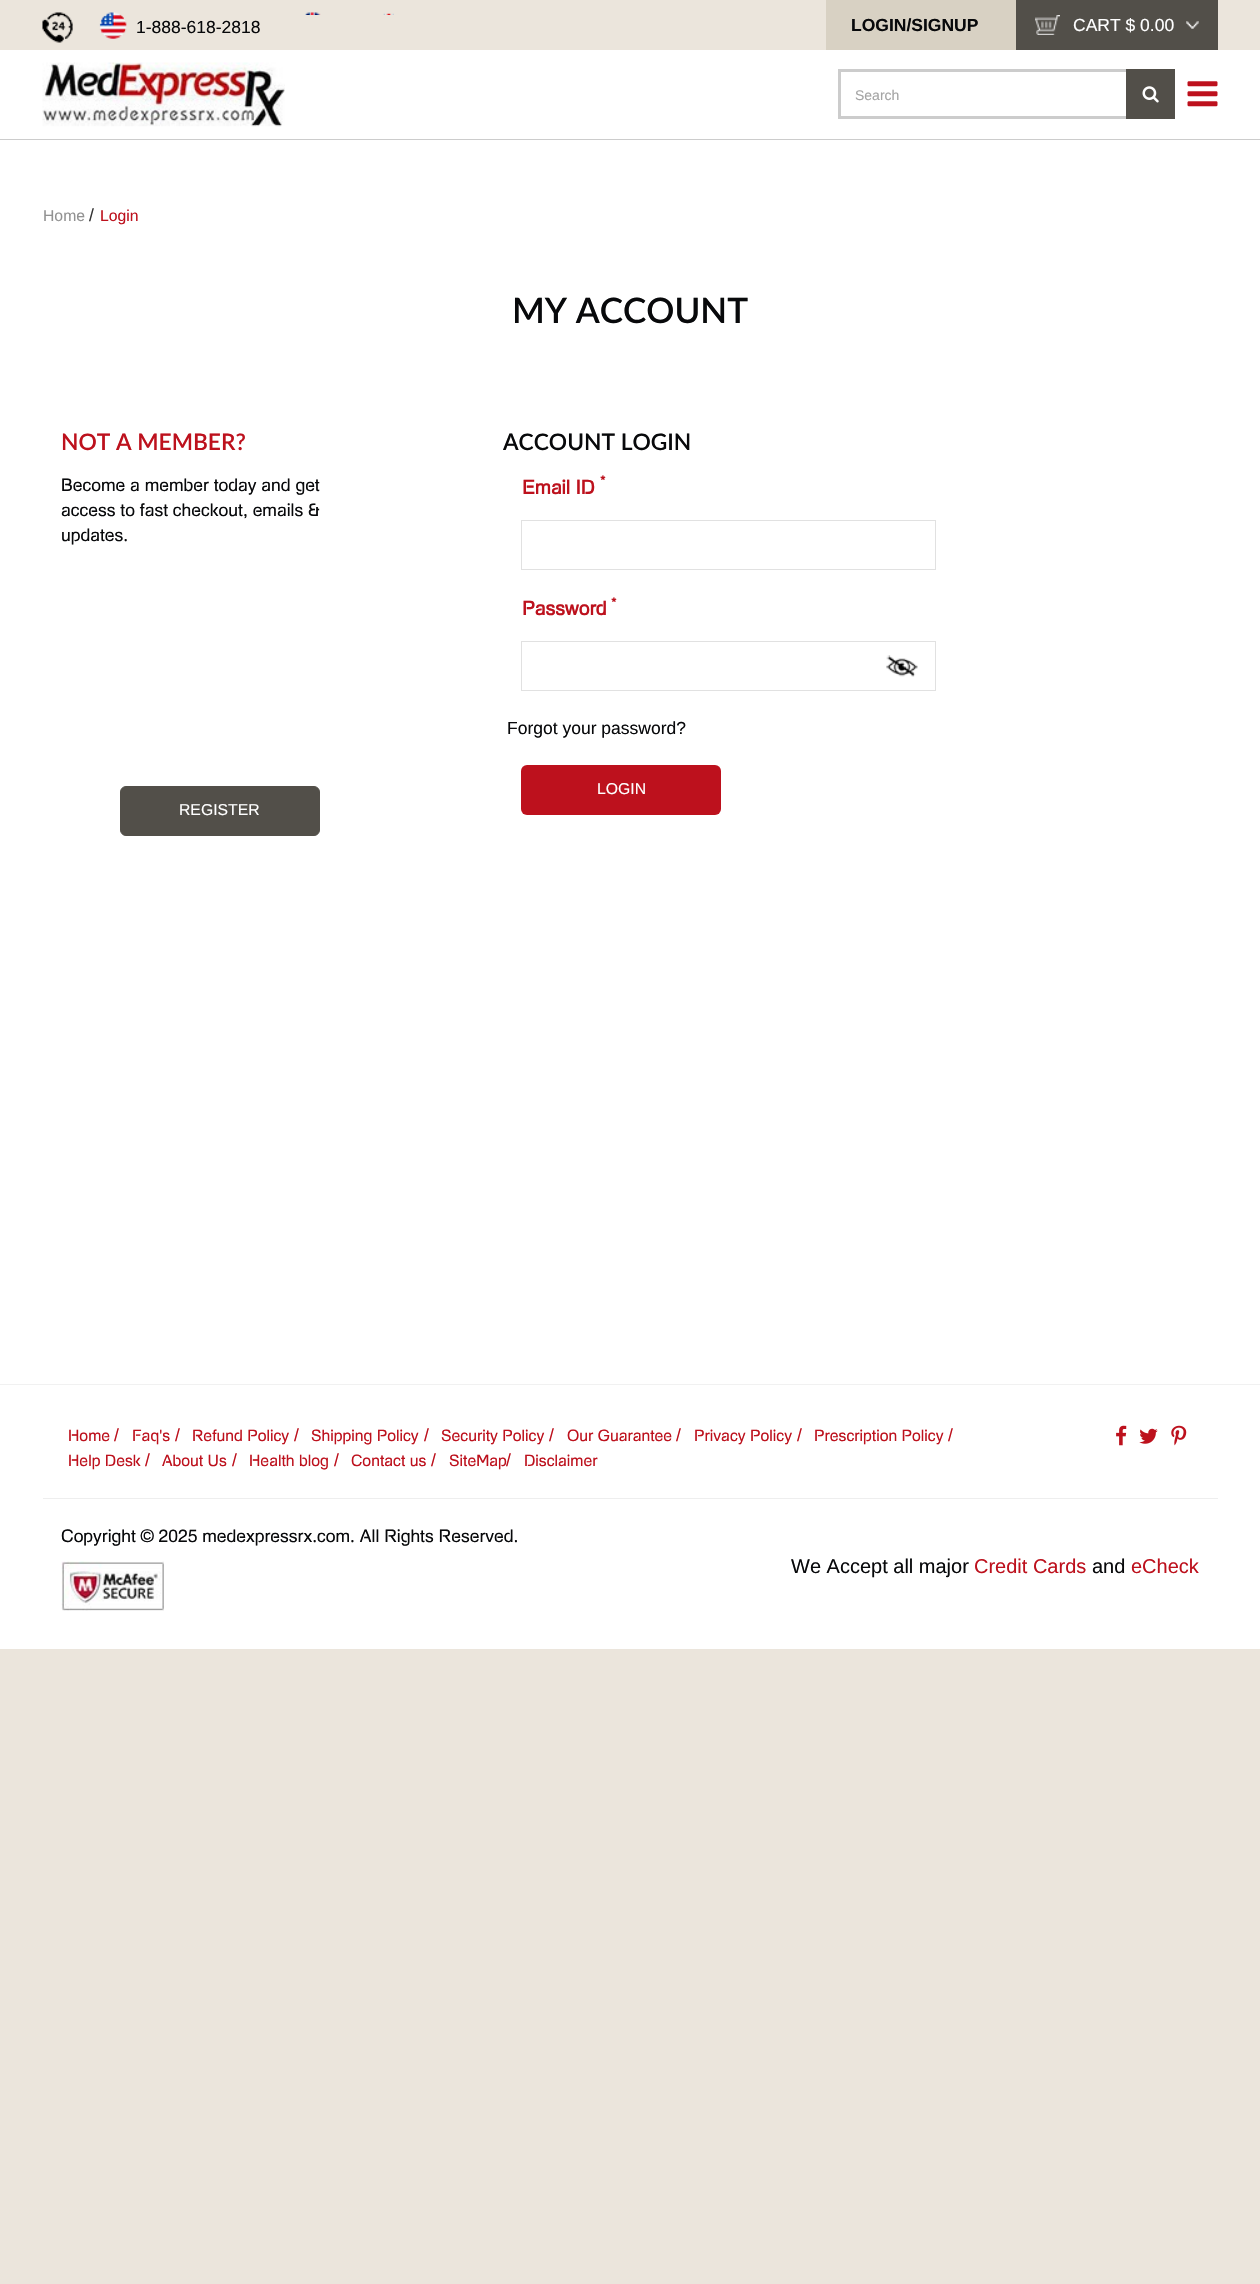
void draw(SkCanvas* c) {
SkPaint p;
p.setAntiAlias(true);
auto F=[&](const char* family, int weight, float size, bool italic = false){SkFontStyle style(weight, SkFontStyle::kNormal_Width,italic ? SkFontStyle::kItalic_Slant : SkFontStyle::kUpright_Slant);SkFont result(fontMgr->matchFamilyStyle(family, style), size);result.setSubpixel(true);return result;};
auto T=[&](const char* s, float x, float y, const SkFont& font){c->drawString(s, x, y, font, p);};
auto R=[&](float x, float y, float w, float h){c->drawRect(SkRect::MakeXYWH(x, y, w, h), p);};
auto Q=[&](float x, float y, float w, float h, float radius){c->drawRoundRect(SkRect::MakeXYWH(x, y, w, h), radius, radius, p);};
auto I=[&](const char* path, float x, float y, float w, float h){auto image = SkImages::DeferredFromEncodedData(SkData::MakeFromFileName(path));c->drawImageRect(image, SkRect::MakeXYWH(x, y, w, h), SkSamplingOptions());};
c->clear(0xffebe5dc);
I("1.png",42,12,31,31);
I("2.png",305,12,16,3);
I("3.png",383,13,11,2);
I("4.png",99,12,28,27);
auto f1 = F("Liberation Sans",400,17.5);
p.setColor(0xff08090b);
T("1-888-618-2818",136,33,f1);
p.setColor(0xffd8d1c3);
R(826,0,190,50);
auto f2 = F("Liberation Sans",700,17.5);
p.setColor(0xff08090b);
T("LOGIN/SIGNUP",851,31,f2);
p.setColor(0xff524f49);
R(1016,0,202,50);
I("5.png",1035,15,25,20);
p.setColor(0xffffffff);
T("CART $ 0.00",1073,31,f1);
I("6.png",1186,21,13,8);
R(0,50,1260,89);
p.setColor(0xffcccccc);
R(0,139,1260,1);
I("7.png",42,62,243,65);
p.setStroke(true);
p.setStrokeWidth(3);
c->drawRect(SkRect::MakeXYWH(839.5,70.5,334,47),p);
auto f3 = F("Liberation Sans",400,14);
p.setStroke(false);
p.setColor(0xffa4a4a4);
T("Search",855,100,f3);
p.setColor(0xff524f49);
R(1126,69,49,50);
I("8.png",1142,86,17,17);
I("9.png",1187,81,31,26);
p.setColor(0xffffffff);
R(0,140,1260,1244);
auto f4 = F("Liberation Sans",400,15.75);
p.setColor(0xff929292);
T("Home",43,221,f4);
p.setColor(0xff333333);
T("/",89,221,f1);
p.setColor(0xffbd111d);
T("Login",100,221,f4);
auto f5 = F("Lato",600,35);
p.setColor(0xff08090b);
T("MY ACCOUNT",512,323,f5);
auto f6 = F("Lato",600,22.75);
p.setColor(0xffbd111d);
T("NOT A MEMBER?",61,450,f6);
auto f7 = F("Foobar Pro",400,17.5);
p.setColor(0xff08090b);
T("Become a member today and get",61,491,f7);
T("access to fast checkout, emails &",61,516,f7);
T("updates.",61,541,f7);
p.setColor(0xff524f49);
c->drawRoundRect(SkRect::MakeXYWH(120.5,786.5,199,49),5.5,5.5,p);
p.setStroke(true);
p.setStrokeWidth(1);
c->drawRoundRect(SkRect::MakeXYWH(120.5,786.5,199,49),5.5,5.5,p);
p.setStroke(false);
p.setColor(0xffffffff);
T("REGISTER",179,815,f4);
p.setColor(0xff08090b);
T("ACCOUNT LOGIN",503,450,f6);
auto f8 = F("Foobar Pro",700,14);
p.setColor(0xffbd111d);
T("*",600,486,f8);
auto f9 = F("Foobar Pro",700,19.25);
T("Email ID",522,494,f9);
p.setStroke(true);
p.setColor(0xffe1e1e1);
c->drawRect(SkRect::MakeXYWH(521.5,520.5,414,49),p);
p.setStroke(false);
p.setColor(0xffbd111d);
T("*",611,608,f8);
T("Password",522,615,f9);
p.setStroke(true);
p.setColor(0xffe1e1e1);
c->drawRect(SkRect::MakeXYWH(521.5,641.5,414,49),p);
I("10.png",886,655,32,22);
p.setStroke(false);
p.setColor(0xff08090b);
T("Forgot your password?",507,734,f1);
p.setColor(0xffbd111d);
Q(521,765,200,50,6);
p.setColor(0xffffffff);
T("LOGIN",597,794,f4);
R(0,1385,1260,264);
p.setColor(0xfff1f1f1);
R(0,1384,1260,1);
auto f10 = F("Foobar Pro",400,15.75);
p.setColor(0xffbd111d);
T("Home",68,1441,f10);
T("/",114,1441,f1);
T("Faq's",132,1441,f10);
T("/",175,1441,f1);
T("Refund Policy",192,1441,f10);
T("/",294,1441,f1);
T("Shipping Policy",311,1441,f10);
T("/",424,1441,f1);
T("Security Policy",441,1441,f10);
T("/",549,1441,f1);
T("Our Guarantee",567,1441,f10);
T("/",676,1441,f1);
T("Privacy Policy",694,1441,f10);
T("/",797,1441,f1);
T("Prescription Policy",814,1441,f10);
T("/",948,1441,f1);
T("Help Desk",68,1466,f10);
T("/",145,1466,f1);
T("About Us",162,1466,f10);
T("/",232,1466,f1);
T("Health blog",249,1466,f10);
T("/",334,1466,f1);
T("Contact us",351,1466,f10);
T("/",431,1466,f1);
T("SiteMap",449,1466,f10);
T("/",506,1466,f1);
T("Disclaimer",524,1466,f10);
I("11.png",1116,1425,11,21);
I("12.png",1139,1428,19,16);
I("13.png",1171,1425,16,21);
p.setColor(0xffeeeeee);
R(43,1498,1175,1);
p.setColor(0xff08090b);
T("Copyright © 2025 medexpressrx.com. All Rights Reserved.",61,1542,f7);
I("14.png",61,1561,103,50);
auto f11 = F("Liberation Sans",400,20);
T("We Accept all major",791,1573,f11);
p.setColor(0xffbd111d);
T("Credit Cards",974,1573,f11);
p.setColor(0xff08090b);
T("and",1092,1573,f11);
p.setColor(0xffbd111d);
T("eCheck",1131,1573,f11);
}
